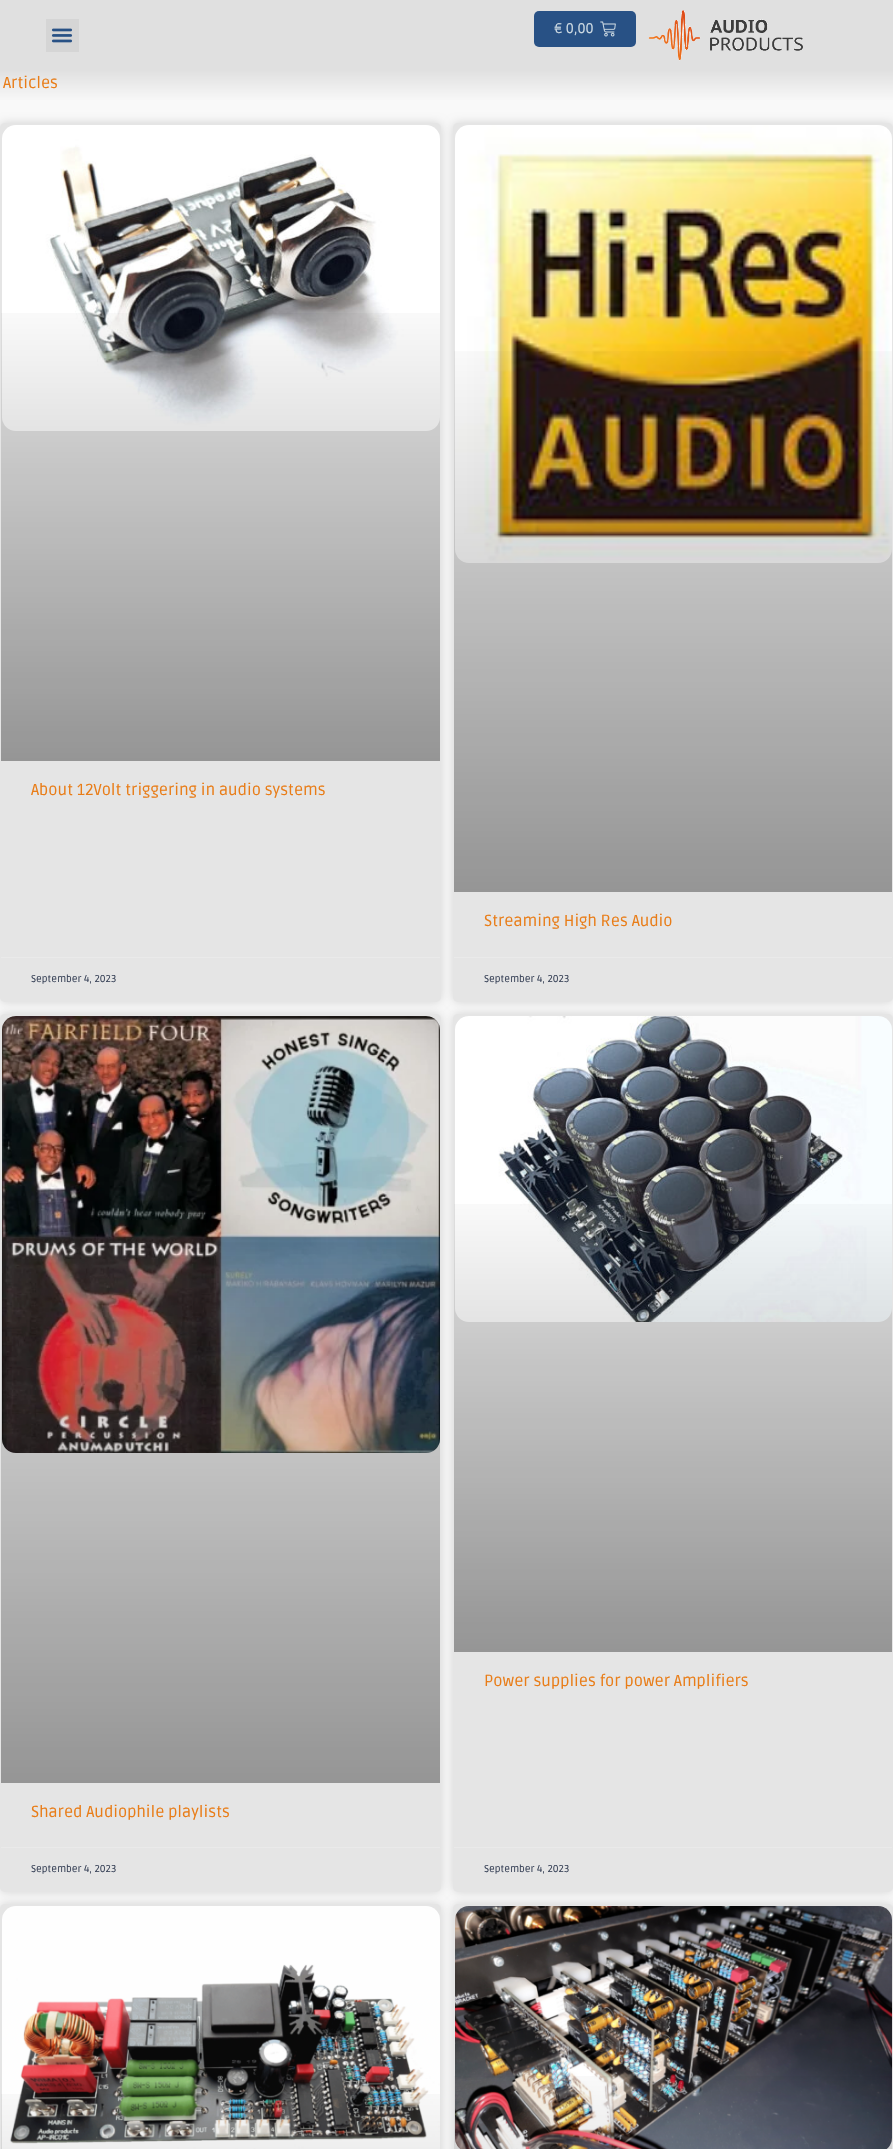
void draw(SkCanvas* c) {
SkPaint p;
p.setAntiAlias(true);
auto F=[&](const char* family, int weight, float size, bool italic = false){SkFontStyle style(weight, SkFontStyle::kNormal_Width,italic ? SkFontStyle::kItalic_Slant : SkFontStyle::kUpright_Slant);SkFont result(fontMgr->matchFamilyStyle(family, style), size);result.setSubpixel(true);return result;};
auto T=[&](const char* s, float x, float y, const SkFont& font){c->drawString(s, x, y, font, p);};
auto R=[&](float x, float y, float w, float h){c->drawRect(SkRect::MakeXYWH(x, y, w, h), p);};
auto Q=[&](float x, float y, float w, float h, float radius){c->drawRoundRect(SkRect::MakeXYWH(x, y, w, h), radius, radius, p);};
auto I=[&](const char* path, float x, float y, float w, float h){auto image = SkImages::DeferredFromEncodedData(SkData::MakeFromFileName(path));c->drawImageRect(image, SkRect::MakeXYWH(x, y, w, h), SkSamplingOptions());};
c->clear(0xfff9f9f9);
p.setColor(0xffe0e0e0);
R(0,0,893,70);
p.setColor(0xffd5d5d5);
R(46,19,33,33);
I("1.png",51,28,22,15);
p.setColor(0xff285185);
Q(534,11,102,36,5);
auto f1 = F("Ruda",400,14);
p.setColor(0xffccd9e2);
T("€ 0,00",554,33,f1);
I("2.png",600,21,16,16);
I("3.png",648,10,155,51);
{
const SkColor colors[] = {0xffe0e0e0,0xfff9f9f9};
const float stops[] = {0,1};
const SkPoint ends[] = {{447,70}, {447,103}};
p.setShader(SkGradientShader::MakeLinear(ends, colors, stops, 2, SkTileMode::kClamp));
p.setAlpha(255);
}
R(0,70,893,30);
auto f2 = F("Ruda",400,16);
p.setShader(nullptr);
p.setColor(0xffe97d18);
T("Articles",3,88,f2);
p.setColor(0x26000000);
p.setMaskFilter(SkMaskFilter::MakeBlur(kNormal_SkBlurStyle, 5));
c->drawRoundRect(SkRect::MakeXYWH(0,123,441,879),5,5,p);
p.setMaskFilter(nullptr);
p.setColor(0xffe5e5e5);
Q(0,123,441,879,5);
I("4.png",2,125,438,306);
{
const SkColor colors[] = {0x59000000,0x00000000};
const float stops[] = {0,.75};
const SkPoint ends[] = {{221,761}, {221,124}};
p.setShader(SkGradientShader::MakeLinear(ends, colors, stops, 2, SkTileMode::kClamp));
p.setAlpha(255);
}
R(1,313,439,448);
p.setShader(nullptr);
p.setColor(0xffe97d18);
T("About 12Volt triggering in audio systems",31,795,f2);
p.setColor(0xffeaeaea);
R(1,957,439,1);
auto f3 = F("Ruda",400,10);
p.setColor(0xff394358);
T("September 4, 2023",31,982,f3);
p.setColor(0x26000000);
p.setMaskFilter(SkMaskFilter::MakeBlur(kNormal_SkBlurStyle, 5));
c->drawRoundRect(SkRect::MakeXYWH(453,123,440,879),5,5,p);
p.setMaskFilter(nullptr);
p.setColor(0xffe5e5e5);
Q(453,123,440,879,5);
I("5.png",455,125,437,438);
{
const SkColor colors[] = {0x59000000,0x00000000};
const float stops[] = {0,.75};
const SkPoint ends[] = {{673,892}, {673,124}};
p.setShader(SkGradientShader::MakeLinear(ends, colors, stops, 2, SkTileMode::kClamp));
p.setAlpha(255);
}
R(454,351,438,541);
p.setShader(nullptr);
p.setColor(0xffe97d18);
T("Streaming High Res Audio",484,926,f2);
p.setColor(0xffeaeaea);
R(454,957,438,1);
p.setColor(0xff394358);
T("September 4, 2023",484,982,f3);
p.setColor(0x26000000);
p.setMaskFilter(SkMaskFilter::MakeBlur(kNormal_SkBlurStyle, 5));
c->drawRoundRect(SkRect::MakeXYWH(0,1014,441,878),5,5,p);
p.setMaskFilter(nullptr);
p.setColor(0xffe5e5e5);
Q(0,1014,441,878,5);
I("6.png",2,1016,438,437);
{
const SkColor colors[] = {0x59000000,0x00000000};
const float stops[] = {0,.75};
const SkPoint ends[] = {{221,1783}, {221,1015}};
p.setShader(SkGradientShader::MakeLinear(ends, colors, stops, 2, SkTileMode::kClamp));
p.setAlpha(255);
}
R(1,1242,439,541);
p.setShader(nullptr);
p.setColor(0xffe97d18);
T("Shared Audiophile playlists",31,1817,f2);
p.setColor(0xffeaeaea);
R(1,1847,439,1);
p.setColor(0xff394358);
T("September 4, 2023",31,1872,f3);
p.setColor(0x26000000);
p.setMaskFilter(SkMaskFilter::MakeBlur(kNormal_SkBlurStyle, 5));
c->drawRoundRect(SkRect::MakeXYWH(453,1014,440,878),5,5,p);
p.setMaskFilter(nullptr);
p.setColor(0xffe5e5e5);
Q(453,1014,440,878,5);
I("7.png",455,1016,437,306);
{
const SkColor colors[] = {0x59000000,0x00000000};
const float stops[] = {0,.75};
const SkPoint ends[] = {{673,1652}, {673,1015}};
p.setShader(SkGradientShader::MakeLinear(ends, colors, stops, 2, SkTileMode::kClamp));
p.setAlpha(255);
}
R(454,1204,438,448);
p.setShader(nullptr);
p.setColor(0xffe97d18);
T("Power supplies for power Amplifiers",484,1686,f2);
p.setColor(0xffeaeaea);
R(454,1847,438,1);
p.setColor(0xff394358);
T("September 4, 2023",484,1872,f3);
p.setColor(0x26000000);
p.setMaskFilter(SkMaskFilter::MakeBlur(kNormal_SkBlurStyle, 5));
c->drawRoundRect(SkRect::MakeXYWH(0,1904,441,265),5,5,p);
p.setMaskFilter(nullptr);
p.setColor(0xffe5e5e5);
Q(0,1904,441,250,5);
I("8.png",2,1906,438,243);
{
const SkColor colors[] = {0x59000000,0x00000000};
const float stops[] = {0,.75};
const SkPoint ends[] = {{221,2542}, {221,1905}};
p.setShader(SkGradientShader::MakeLinear(ends, colors, stops, 2, SkTileMode::kClamp));
p.setAlpha(255);
}
R(1,2094,439,55);
p.setShader(nullptr);
p.setColor(0x26000000);
p.setMaskFilter(SkMaskFilter::MakeBlur(kNormal_SkBlurStyle, 5));
c->drawRoundRect(SkRect::MakeXYWH(453,1904,440,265),5,5,p);
p.setMaskFilter(nullptr);
p.setColor(0xffe5e5e5);
Q(453,1904,440,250,5);
I("9.png",455,1906,437,243);
{
const SkColor colors[] = {0x59000000,0x00000000};
const float stops[] = {0,.75};
const SkPoint ends[] = {{673,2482}, {673,1905}};
p.setShader(SkGradientShader::MakeLinear(ends, colors, stops, 2, SkTileMode::kClamp));
p.setAlpha(255);
}
R(454,2076,438,73);
}
